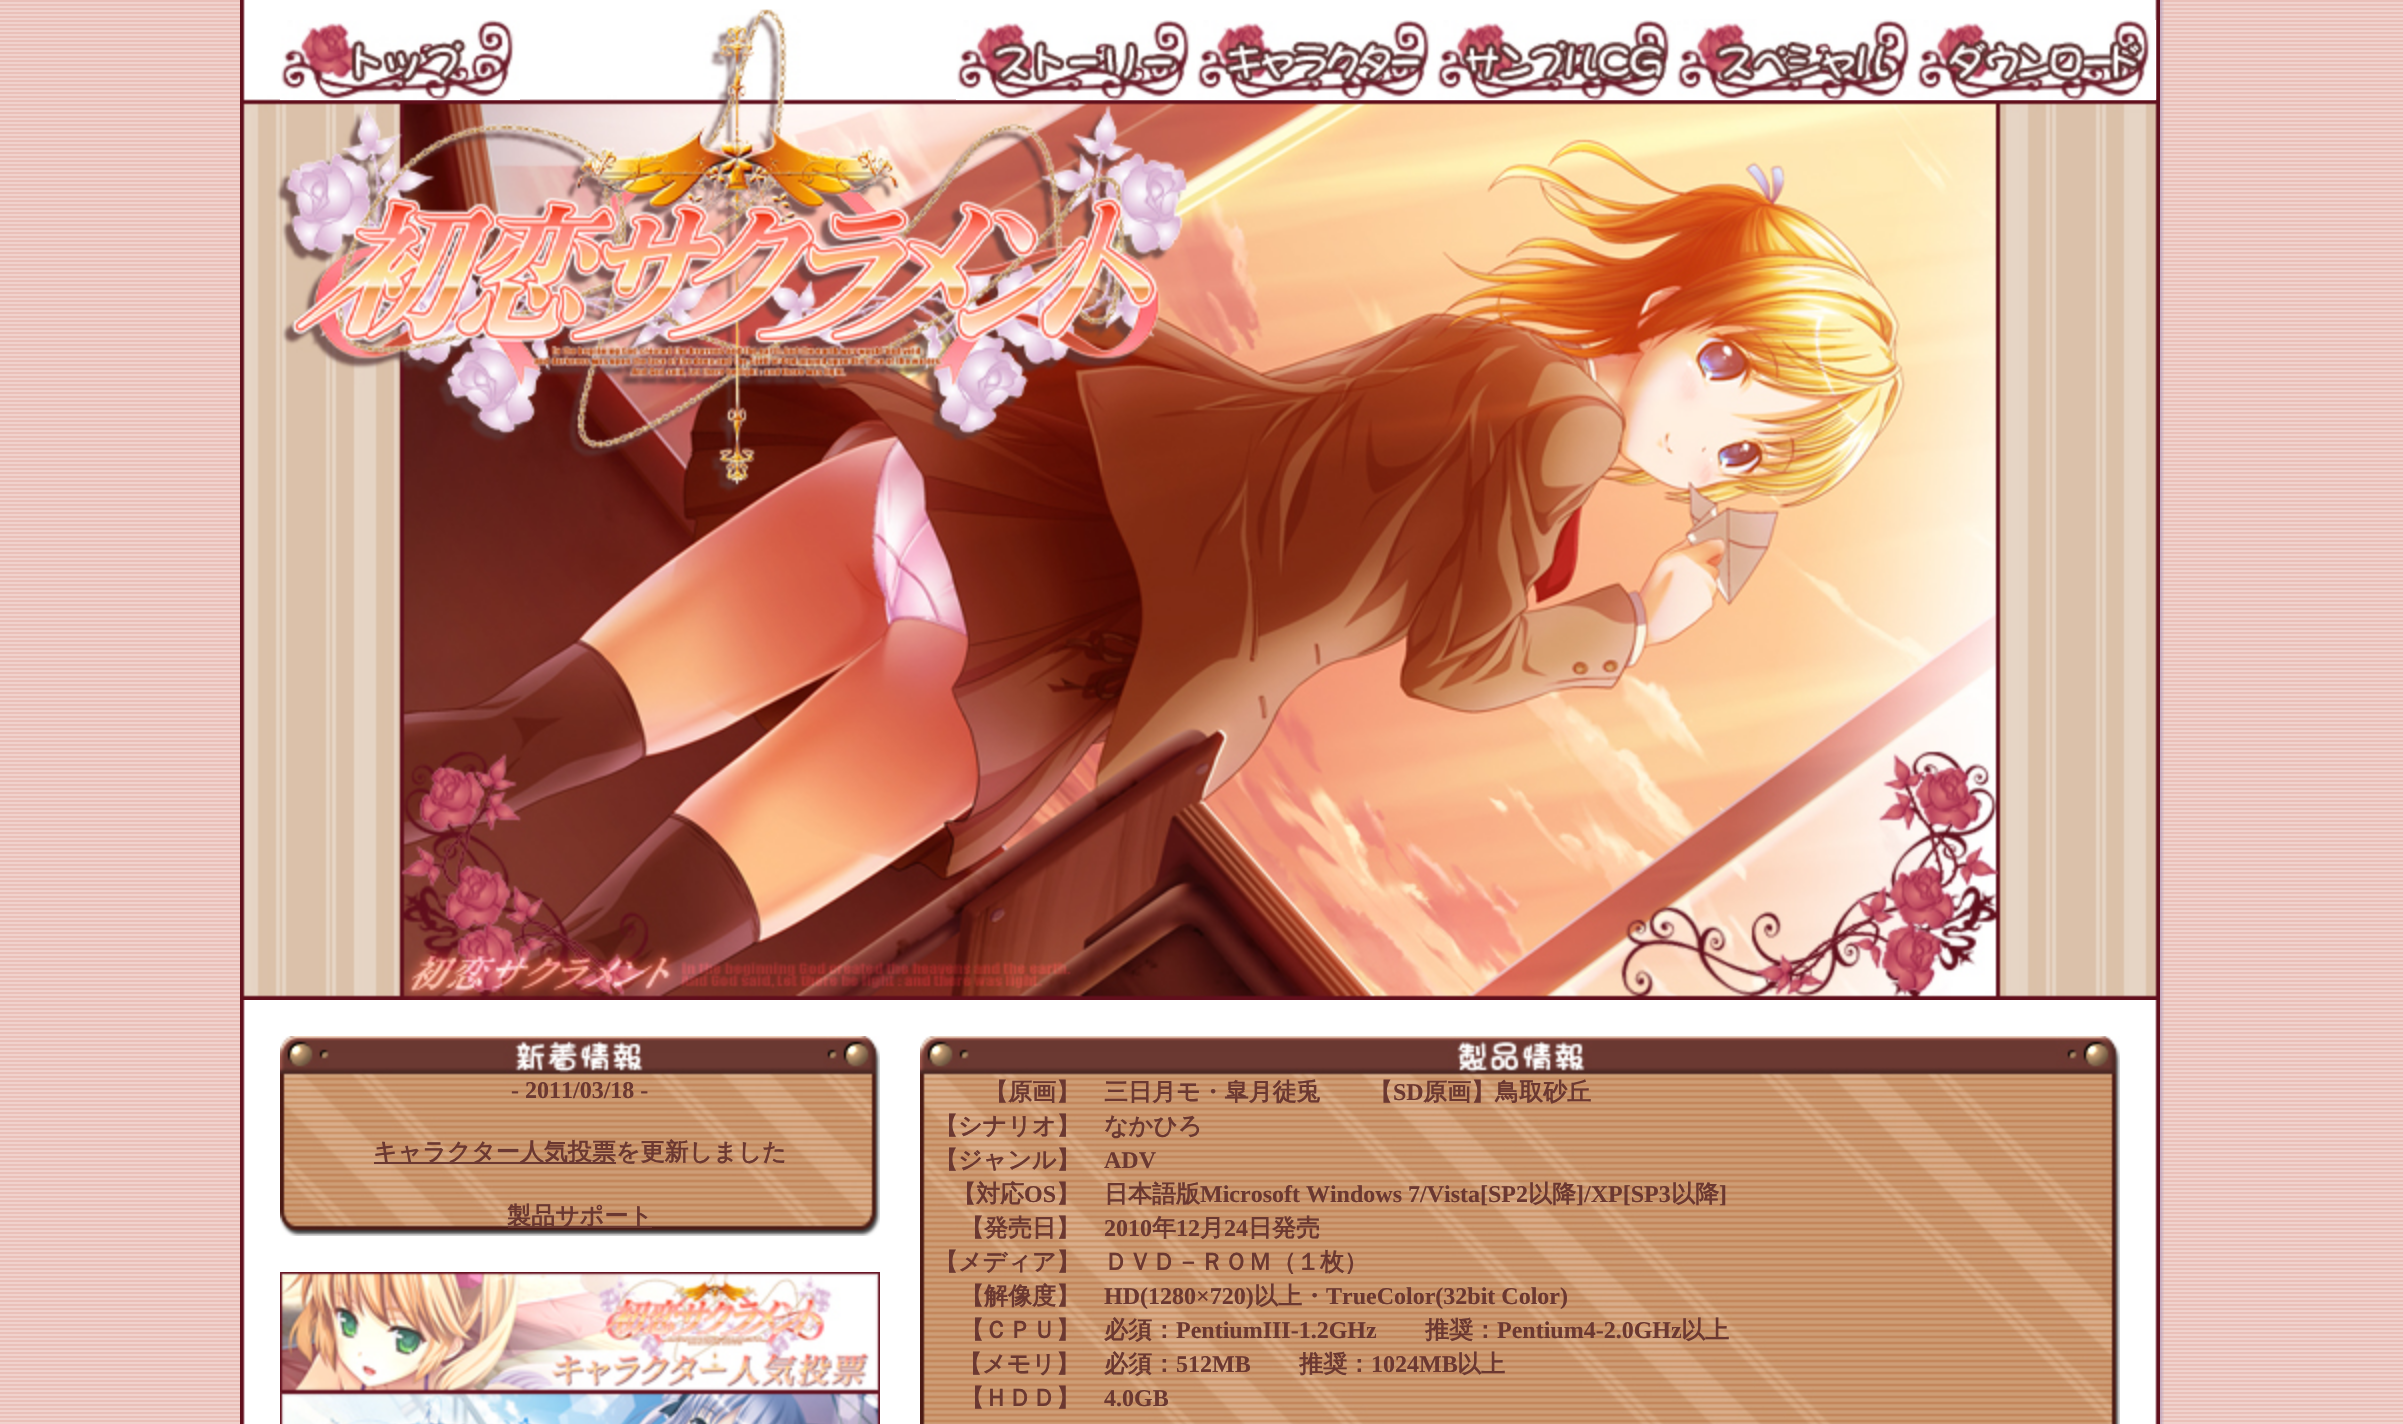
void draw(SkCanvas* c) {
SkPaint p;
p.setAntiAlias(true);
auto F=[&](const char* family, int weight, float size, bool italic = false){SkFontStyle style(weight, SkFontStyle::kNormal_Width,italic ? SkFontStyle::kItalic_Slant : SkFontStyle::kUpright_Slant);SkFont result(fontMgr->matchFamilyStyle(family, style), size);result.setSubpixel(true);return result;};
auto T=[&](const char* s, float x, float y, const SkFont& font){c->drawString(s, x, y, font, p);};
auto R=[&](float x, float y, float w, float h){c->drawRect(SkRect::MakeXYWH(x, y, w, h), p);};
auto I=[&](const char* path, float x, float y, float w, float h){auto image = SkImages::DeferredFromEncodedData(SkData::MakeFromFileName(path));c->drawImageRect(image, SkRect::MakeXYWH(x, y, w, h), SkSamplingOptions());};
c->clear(0xffffffff);
I("1.png",0,0,2403,1424);
I("2.png",240,0,1920,1424);
I("3.png",243,9,1914,991);
I("4.png",280,20,240,80);
I("5.png",956,20,240,80);
I("6.png",1196,20,240,80);
I("7.png",1436,20,240,80);
I("8.png",1676,19,240,81);
I("9.png",1916,20,240,80);
I("10.png",280,1036,600,200);
auto f1 = F("Liberation Serif",700,24);
p.setColor(0xff6b3831);
T("- 2011/03/18 -",511,1098,f1);
R(374,1162,242,2);
auto f2 = F("WenQuanYi Zen Hei",700,24);
T("キャラクター人気投票を更新しました",373,1160,f2);
R(508,1226,144,2);
T("製品サポート",507,1224,f2);
I("11.png",280,1272,600,120);
I("12.png",280,1392,600,32);
I("13.png",920,1036,1200,388);
T("【原画】",984,1100,f2);
T("三日月モ・皐月徒兎　　【",1104,1100,f2);
T("SD",1393,1100,f1);
T("原画】鳥取砂丘",1423,1100,f2);
T("【シナリオ】",934,1134,f2);
T("なかひろ",1104,1134,f2);
T("【ジャンル】",934,1168,f2);
T("ADV",1104,1168,f1);
T("【対応",952,1202,f2);
T("OS",1024,1202,f1);
T("】",1056,1202,f2);
T("日本語版",1104,1202,f2);
T("Microsoft Windows 7/Vista[SP2",1200,1202,f1);
T("以降",1528,1202,f2);
T("]/XP[SP3",1576,1202,f1);
T("以降",1671,1202,f2);
T("]",1719,1202,f1);
T("【発売日】",960,1236,f2);
T("2010",1104,1236,f1);
T("年",1152,1236,f2);
T("12",1176,1236,f1);
T("月",1200,1236,f2);
T("24",1224,1236,f1);
T("日発売",1248,1236,f2);
T("【メディア】",934,1270,f2);
T("ＤＶＤ－ＲＯＭ（１枚）",1104,1270,f2);
T("【解像度】",960,1304,f2);
T("HD(1280×720)",1104,1304,f1);
T("以上・",1254,1304,f2);
T("TrueColor(32bit Color)",1326,1304,f1);
T("【ＣＰＵ】",960,1338,f2);
T("必須：",1104,1338,f2);
T("PentiumIII-1.2GHz",1176,1338,f1);
T("推奨：",1425,1338,f2);
T("Pentium4-2.0GHz",1497,1338,f1);
T("以上",1681,1338,f2);
T("【メモリ】",958,1372,f2);
T("必須：",1104,1372,f2);
T("512MB",1176,1372,f1);
T("推奨：",1299,1372,f2);
T("1024MB",1371,1372,f1);
T("以上",1457,1372,f2);
T("【ＨＤＤ】",960,1406,f2);
T("4.0GB",1104,1406,f1);
I("14.png",2160,0,4,1424);
}
